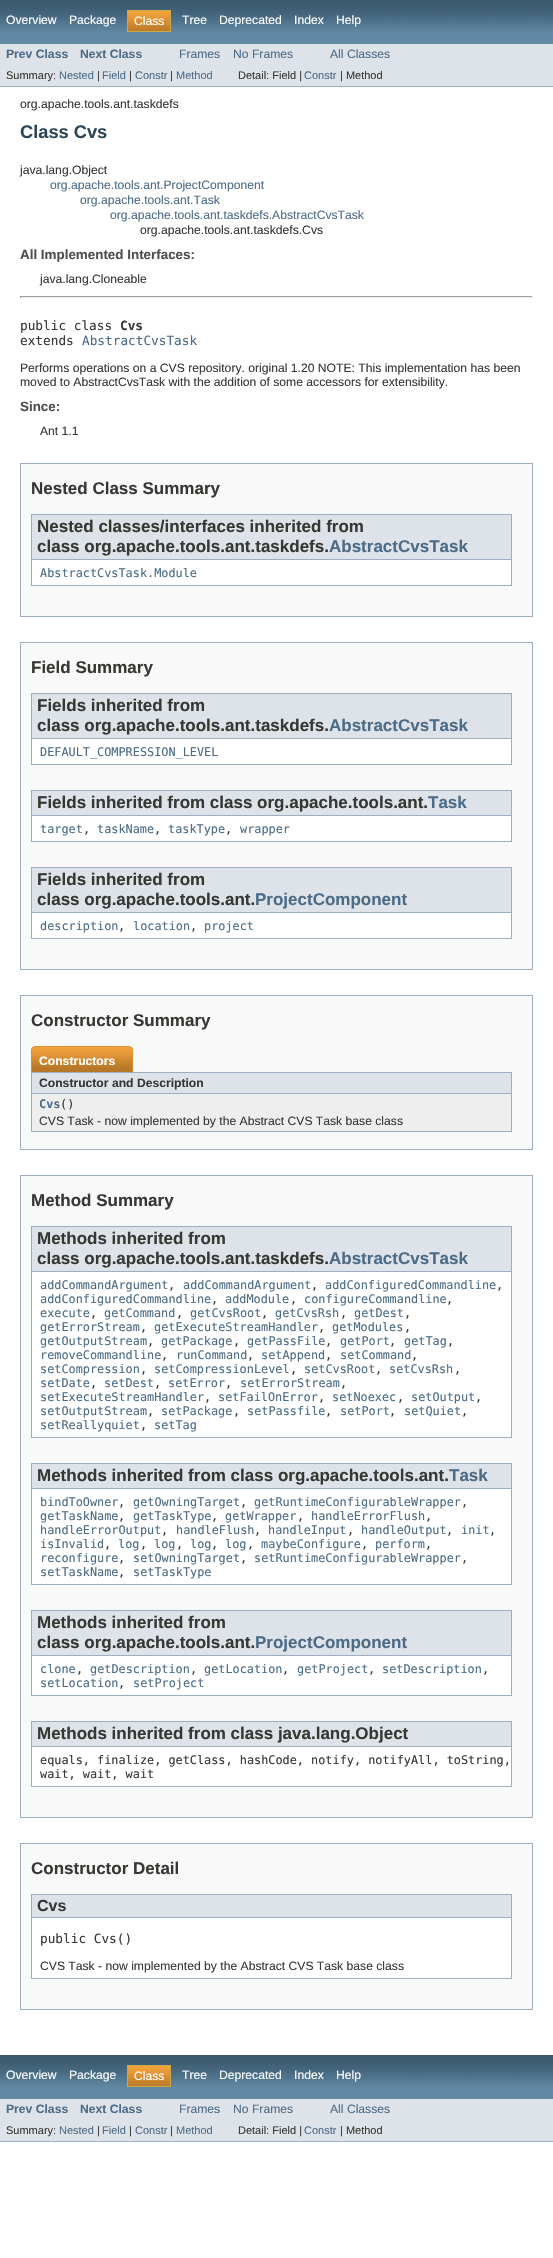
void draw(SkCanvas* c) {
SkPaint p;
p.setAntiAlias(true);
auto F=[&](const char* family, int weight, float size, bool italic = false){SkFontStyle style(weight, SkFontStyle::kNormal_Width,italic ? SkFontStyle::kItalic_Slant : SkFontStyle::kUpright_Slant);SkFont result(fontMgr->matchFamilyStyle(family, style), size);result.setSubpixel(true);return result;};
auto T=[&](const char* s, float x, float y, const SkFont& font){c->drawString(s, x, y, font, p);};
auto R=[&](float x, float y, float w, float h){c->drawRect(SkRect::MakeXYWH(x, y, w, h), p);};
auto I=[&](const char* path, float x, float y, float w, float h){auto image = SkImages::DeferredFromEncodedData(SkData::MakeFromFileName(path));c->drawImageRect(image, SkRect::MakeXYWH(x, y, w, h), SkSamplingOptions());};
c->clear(0xffffffff);
I("1.png",0,0,553,44);
auto f1 = F("Liberation Sans",400,12.15);
p.setColor(0xffffffff);
T("Overview",6,24,f1);
T("Package",69,24,f1);
I("2.png",128,11,42,20);
p.setStroke(true);
p.setStrokeWidth(1);
p.setColor(0xffc9aa44);
c->drawRect(SkRect::MakeXYWH(127.5,10.5,43,21),p);
p.setStroke(false);
p.setColor(0xffffffff);
T("Class",134,25,f1);
T("Tree",182,24,f1);
T("Deprecated",219,24,f1);
T("Index",294,24,f1);
T("Help",336,24,f1);
p.setColor(0xffdee3e9);
R(0,44,553,42);
p.setColor(0xff9eadc0);
R(0,86,553,1);
auto f2 = F("Liberation Sans",700,12.15);
p.setColor(0xff4c6b87);
T("Prev Class",6,58,f2);
T("Next Class",80,58,f2);
T("Frames",179,58,f1);
T("No Frames",233,58,f1);
T("All Classes",330,58,f1);
auto f3 = F("Liberation Sans",400,11);
p.setColor(0xff353833);
T("Summary:",6,79,f3);
p.setColor(0xff4c6b87);
T("Nested",59,79,f3);
p.setColor(0xff353833);
T("|",97,79,f3);
p.setColor(0xff4c6b87);
T("Field",102,79,f3);
p.setColor(0xff353833);
T("|",129,79,f3);
p.setColor(0xff4c6b87);
T("Constr",135,79,f3);
p.setColor(0xff353833);
T("|",170,79,f3);
p.setColor(0xff4c6b87);
T("Method",176,79,f3);
p.setColor(0xff353833);
T("Detail: Field |",238,79,f3);
p.setColor(0xff4c6b87);
T("Constr",304,79,f3);
p.setColor(0xff353833);
T("| Method",340,79,f3);
T("org.apache.tools.ant.taskdefs",20,108,f1);
auto f4 = F("Liberation Sans",700,18.25);
p.setColor(0xff2c4557);
T("Class Cvs",20,138,f4);
p.setColor(0xff353833);
T("java.lang.Object",20,174,f1);
p.setColor(0xff4c6b87);
T("org.apache.tools.ant.ProjectComponent",50,189,f1);
T("org.apache.tools.ant.Task",80,204,f1);
T("org.apache.tools.ant.taskdefs.AbstractCvsTask",110,219,f1);
p.setColor(0xff353833);
T("org.apache.tools.ant.taskdefs.Cvs",140,234,f1);
auto f5 = F("Liberation Sans",700,13.4);
p.setColor(0xff4e4e4e);
T("All Implemented Interfaces:",20,259,f5);
p.setColor(0xff353833);
T("java.lang.Cloneable",40,283,f1);
p.setColor(0xff9f9f9f);
R(20,296,513,1);
p.setColor(0xffeeeeee);
R(532,296,1,2);
R(20,297,513,1);
p.setColor(0xff9f9f9f);
R(20,296,1,2);
auto f6 = F("DejaVu Sans Mono",400,12.75);
p.setColor(0xff353833);
T("public class",20,330,f6);
auto f7 = F("DejaVu Sans Mono",700,12.75);
T("Cvs",120,330,f7);
T("extends",20,345,f6);
p.setColor(0xff4c6b87);
T("AbstractCvsTask",82,345,f6);
p.setColor(0xff353833);
T("Performs operations on a CVS repository. original 1.20 NOTE: This implementation has been",20,372,f1);
T("moved to AbstractCvsTask with the addition of some accessors for extensibility.",20,386,f1);
p.setColor(0xff4e4e4e);
T("Since:",20,411,f5);
p.setColor(0xff353833);
T("Ant 1.1",40,435,f1);
p.setColor(0xfff9f9f9);
c->drawRect(SkRect::MakeXYWH(20.5,463.5,512,153),p);
p.setStroke(true);
p.setColor(0xff9eadc0);
c->drawRect(SkRect::MakeXYWH(20.5,463.5,512,153),p);
auto f8 = F("Liberation Sans",700,17);
p.setStroke(false);
p.setColor(0xff353833);
T("Nested Class Summary",31,494,f8);
p.setColor(0xffffffff);
R(32,560,479,25);
p.setColor(0xff9eadc0);
R(511,514,1,72);
R(31,585,481,1);
R(31,514,1,72);
p.setColor(0xffdee3e9);
R(32,515,479,44);
p.setColor(0xff9eadc0);
R(32,514,479,1);
R(32,559,479,1);
p.setColor(0xff353833);
T("Nested classes/interfaces inherited from",37,532,f8);
T("class org.apache.tools.ant.taskdefs.",37,552,f8);
p.setColor(0xff4c6b87);
T("AbstractCvsTask",329,552,f8);
auto f9 = F("DejaVu Sans Mono",400,11.85);
T("AbstractCvsTask.Module",40,577,f9);
p.setColor(0xfff9f9f9);
c->drawRect(SkRect::MakeXYWH(20.5,642.5,512,327),p);
p.setStroke(true);
p.setColor(0xff9eadc0);
c->drawRect(SkRect::MakeXYWH(20.5,642.5,512,327),p);
p.setStroke(false);
p.setColor(0xff353833);
T("Field Summary",31,673,f8);
p.setColor(0xffffffff);
R(32,739,479,25);
p.setColor(0xff9eadc0);
R(511,693,1,72);
R(31,764,481,1);
R(31,693,1,72);
p.setColor(0xffdee3e9);
R(32,694,479,44);
p.setColor(0xff9eadc0);
R(32,693,479,1);
R(32,738,479,1);
p.setColor(0xff353833);
T("Fields inherited from",37,711,f8);
T("class org.apache.tools.ant.taskdefs.",37,731,f8);
p.setColor(0xff4c6b87);
T("AbstractCvsTask",329,731,f8);
T("DEFAULT_COMPRESSION_LEVEL",40,756,f9);
p.setColor(0xffffffff);
R(32,816,479,25);
p.setColor(0xff9eadc0);
R(511,790,1,52);
R(31,841,481,1);
R(31,790,1,52);
p.setColor(0xffdee3e9);
R(32,791,479,24);
p.setColor(0xff9eadc0);
R(32,790,479,1);
R(32,815,479,1);
p.setColor(0xff353833);
T("Fields inherited from class org.apache.tools.ant.",37,808,f8);
p.setColor(0xff4c6b87);
T("Task",428,808,f8);
T("target",40,833,f9);
p.setColor(0xff353833);
T(",",83,833,f9);
p.setColor(0xff4c6b87);
T("taskName",97,833,f9);
p.setColor(0xff353833);
T(",",154,833,f9);
p.setColor(0xff4c6b87);
T("taskType",168,833,f9);
p.setColor(0xff353833);
T(",",225,833,f9);
p.setColor(0xff4c6b87);
T("wrapper",240,833,f9);
p.setColor(0xffffffff);
R(32,913,479,25);
p.setColor(0xff9eadc0);
R(511,867,1,72);
R(31,938,481,1);
R(31,867,1,72);
p.setColor(0xffdee3e9);
R(32,868,479,44);
p.setColor(0xff9eadc0);
R(32,867,479,1);
R(32,912,479,1);
p.setColor(0xff353833);
T("Fields inherited from",37,885,f8);
T("class org.apache.tools.ant.",37,905,f8);
p.setColor(0xff4c6b87);
T("ProjectComponent",255,905,f8);
T("description",40,930,f9);
p.setColor(0xff353833);
T(",",118,930,f9);
p.setColor(0xff4c6b87);
T("location",133,930,f9);
p.setColor(0xff353833);
T(",",190,930,f9);
p.setColor(0xff4c6b87);
T("project",204,930,f9);
p.setColor(0xfff9f9f9);
c->drawRect(SkRect::MakeXYWH(20.5,995.5,512,154),p);
p.setStroke(true);
p.setColor(0xff9eadc0);
c->drawRect(SkRect::MakeXYWH(20.5,995.5,512,154),p);
p.setStroke(false);
p.setColor(0xff353833);
T("Constructor Summary",31,1026,f8);
p.setColor(0xff9eadc0);
R(31,1131,481,1);
I("3.png",31,1046,84,26);
p.setColor(0xffffffff);
T("Constructors",39,1065,f2);
I("4.png",115,1046,18,26);
p.setColor(0xffdee3e9);
c->drawRect(SkRect::MakeXYWH(31.5,1072.5,480,21),p);
p.setStroke(true);
p.setColor(0xff9eadc0);
c->drawRect(SkRect::MakeXYWH(31.5,1072.5,480,21),p);
p.setStroke(false);
p.setColor(0xff353833);
T("Constructor and Description",39,1087,f2);
p.setColor(0xffeeeeef);
R(32,1094,479,37);
p.setColor(0xff9eadc0);
R(511,1094,1,37);
R(31,1094,1,37);
auto f10 = F("DejaVu Sans Mono",700,11.85);
p.setColor(0xff4c6b87);
T("Cvs",39,1108,f10);
p.setColor(0xff353833);
T("()",60,1108,f9);
T("CVS Task - now implemented by the Abstract CVS Task base class",39,1125,f1);
p.setColor(0xfff9f9f9);
c->drawRect(SkRect::MakeXYWH(20.5,1175.5,512,642),p);
p.setStroke(true);
p.setColor(0xff9eadc0);
c->drawRect(SkRect::MakeXYWH(20.5,1175.5,512,642),p);
p.setStroke(false);
p.setColor(0xff353833);
T("Method Summary",31,1206,f8);
p.setColor(0xffffffff);
R(32,1272,479,165);
p.setColor(0xff9eadc0);
R(511,1226,1,212);
R(31,1437,481,1);
R(31,1226,1,212);
p.setColor(0xffdee3e9);
R(32,1227,479,44);
p.setColor(0xff9eadc0);
R(32,1226,479,1);
R(32,1271,479,1);
p.setColor(0xff353833);
T("Methods inherited from",37,1244,f8);
T("class org.apache.tools.ant.taskdefs.",37,1264,f8);
p.setColor(0xff4c6b87);
T("AbstractCvsTask",329,1264,f8);
T("addCommandArgument",40,1289,f9);
p.setColor(0xff353833);
T(",",168,1289,f9);
p.setColor(0xff4c6b87);
T("addCommandArgument",183,1289,f9);
p.setColor(0xff353833);
T(",",311,1289,f9);
p.setColor(0xff4c6b87);
T("addConfiguredCommandline",325,1289,f9);
p.setColor(0xff353833);
T(",",496,1289,f9);
p.setColor(0xff4c6b87);
T("addConfiguredCommandline",40,1303,f9);
p.setColor(0xff353833);
T(",",211,1303,f9);
p.setColor(0xff4c6b87);
T("addModule",225,1303,f9);
p.setColor(0xff353833);
T(",",290,1303,f9);
p.setColor(0xff4c6b87);
T("configureCommandline",304,1303,f9);
p.setColor(0xff353833);
T(",",446,1303,f9);
p.setColor(0xff4c6b87);
T("execute",40,1317,f9);
p.setColor(0xff353833);
T(",",90,1317,f9);
p.setColor(0xff4c6b87);
T("getCommand",104,1317,f9);
p.setColor(0xff353833);
T(",",176,1317,f9);
p.setColor(0xff4c6b87);
T("getCvsRoot",190,1317,f9);
p.setColor(0xff353833);
T(",",261,1317,f9);
p.setColor(0xff4c6b87);
T("getCvsRsh",275,1317,f9);
p.setColor(0xff353833);
T(",",340,1317,f9);
p.setColor(0xff4c6b87);
T("getDest",354,1317,f9);
p.setColor(0xff353833);
T(",",404,1317,f9);
p.setColor(0xff4c6b87);
T("getErrorStream",40,1331,f9);
p.setColor(0xff353833);
T(",",140,1331,f9);
p.setColor(0xff4c6b87);
T("getExecuteStreamHandler",154,1331,f9);
p.setColor(0xff353833);
T(",",318,1331,f9);
p.setColor(0xff4c6b87);
T("getModules",332,1331,f9);
p.setColor(0xff353833);
T(",",404,1331,f9);
p.setColor(0xff4c6b87);
T("getOutputStream",40,1345,f9);
p.setColor(0xff353833);
T(",",147,1345,f9);
p.setColor(0xff4c6b87);
T("getPackage",161,1345,f9);
p.setColor(0xff353833);
T(",",233,1345,f9);
p.setColor(0xff4c6b87);
T("getPassFile",247,1345,f9);
p.setColor(0xff353833);
T(",",325,1345,f9);
p.setColor(0xff4c6b87);
T("getPort",340,1345,f9);
p.setColor(0xff353833);
T(",",389,1345,f9);
p.setColor(0xff4c6b87);
T("getTag",404,1345,f9);
p.setColor(0xff353833);
T(",",447,1345,f9);
p.setColor(0xff4c6b87);
T("removeCommandline",40,1359,f9);
p.setColor(0xff353833);
T(",",161,1359,f9);
p.setColor(0xff4c6b87);
T("runCommand",176,1359,f9);
p.setColor(0xff353833);
T(",",247,1359,f9);
p.setColor(0xff4c6b87);
T("setAppend",261,1359,f9);
p.setColor(0xff353833);
T(",",325,1359,f9);
p.setColor(0xff4c6b87);
T("setCommand",340,1359,f9);
p.setColor(0xff353833);
T(",",411,1359,f9);
p.setColor(0xff4c6b87);
T("setCompression",40,1373,f9);
p.setColor(0xff353833);
T(",",140,1373,f9);
p.setColor(0xff4c6b87);
T("setCompressionLevel",154,1373,f9);
p.setColor(0xff353833);
T(",",290,1373,f9);
p.setColor(0xff4c6b87);
T("setCvsRoot",304,1373,f9);
p.setColor(0xff353833);
T(",",375,1373,f9);
p.setColor(0xff4c6b87);
T("setCvsRsh",389,1373,f9);
p.setColor(0xff353833);
T(",",454,1373,f9);
p.setColor(0xff4c6b87);
T("setDate",40,1387,f9);
p.setColor(0xff353833);
T(",",90,1387,f9);
p.setColor(0xff4c6b87);
T("setDest",104,1387,f9);
p.setColor(0xff353833);
T(",",154,1387,f9);
p.setColor(0xff4c6b87);
T("setError",168,1387,f9);
p.setColor(0xff353833);
T(",",225,1387,f9);
p.setColor(0xff4c6b87);
T("setErrorStream",240,1387,f9);
p.setColor(0xff353833);
T(",",340,1387,f9);
p.setColor(0xff4c6b87);
T("setExecuteStreamHandler",40,1401,f9);
p.setColor(0xff353833);
T(",",204,1401,f9);
p.setColor(0xff4c6b87);
T("setFailOnError",218,1401,f9);
p.setColor(0xff353833);
T(",",318,1401,f9);
p.setColor(0xff4c6b87);
T("setNoexec",332,1401,f9);
p.setColor(0xff353833);
T(",",397,1401,f9);
p.setColor(0xff4c6b87);
T("setOutput",411,1401,f9);
p.setColor(0xff353833);
T(",",475,1401,f9);
p.setColor(0xff4c6b87);
T("setOutputStream",40,1415,f9);
p.setColor(0xff353833);
T(",",147,1415,f9);
p.setColor(0xff4c6b87);
T("setPackage",161,1415,f9);
p.setColor(0xff353833);
T(",",233,1415,f9);
p.setColor(0xff4c6b87);
T("setPassfile",247,1415,f9);
p.setColor(0xff353833);
T(",",325,1415,f9);
p.setColor(0xff4c6b87);
T("setPort",340,1415,f9);
p.setColor(0xff353833);
T(",",389,1415,f9);
p.setColor(0xff4c6b87);
T("setQuiet",404,1415,f9);
p.setColor(0xff353833);
T(",",461,1415,f9);
p.setColor(0xff4c6b87);
T("setReallyquiet",40,1429,f9);
p.setColor(0xff353833);
T(",",140,1429,f9);
p.setColor(0xff4c6b87);
T("setTag",154,1429,f9);
p.setColor(0xffffffff);
R(32,1489,479,95);
p.setColor(0xff9eadc0);
R(511,1463,1,122);
R(31,1584,481,1);
R(31,1463,1,122);
p.setColor(0xffdee3e9);
R(32,1464,479,24);
p.setColor(0xff9eadc0);
R(32,1463,479,1);
R(32,1488,479,1);
p.setColor(0xff353833);
T("Methods inherited from class org.apache.tools.ant.",37,1481,f8);
p.setColor(0xff4c6b87);
T("Task",449,1481,f8);
T("bindToOwner",40,1506,f9);
p.setColor(0xff353833);
T(",",118,1506,f9);
p.setColor(0xff4c6b87);
T("getOwningTarget",133,1506,f9);
p.setColor(0xff353833);
T(",",240,1506,f9);
p.setColor(0xff4c6b87);
T("getRuntimeConfigurableWrapper",254,1506,f9);
p.setColor(0xff353833);
T(",",461,1506,f9);
p.setColor(0xff4c6b87);
T("getTaskName",40,1520,f9);
p.setColor(0xff353833);
T(",",118,1520,f9);
p.setColor(0xff4c6b87);
T("getTaskType",133,1520,f9);
p.setColor(0xff353833);
T(",",211,1520,f9);
p.setColor(0xff4c6b87);
T("getWrapper",225,1520,f9);
p.setColor(0xff353833);
T(",",297,1520,f9);
p.setColor(0xff4c6b87);
T("handleErrorFlush",311,1520,f9);
p.setColor(0xff353833);
T(",",425,1520,f9);
p.setColor(0xff4c6b87);
T("handleErrorOutput",40,1534,f9);
p.setColor(0xff353833);
T(",",161,1534,f9);
p.setColor(0xff4c6b87);
T("handleFlush",176,1534,f9);
p.setColor(0xff353833);
T(",",254,1534,f9);
p.setColor(0xff4c6b87);
T("handleInput",268,1534,f9);
p.setColor(0xff353833);
T(",",347,1534,f9);
p.setColor(0xff4c6b87);
T("handleOutput",361,1534,f9);
p.setColor(0xff353833);
T(",",446,1534,f9);
p.setColor(0xff4c6b87);
T("init",461,1534,f9);
p.setColor(0xff353833);
T(",",489,1534,f9);
p.setColor(0xff4c6b87);
T("isInvalid",40,1548,f9);
p.setColor(0xff353833);
T(",",104,1548,f9);
p.setColor(0xff4c6b87);
T("log",118,1548,f9);
p.setColor(0xff353833);
T(",",140,1548,f9);
p.setColor(0xff4c6b87);
T("log",154,1548,f9);
p.setColor(0xff353833);
T(",",176,1548,f9);
p.setColor(0xff4c6b87);
T("log",190,1548,f9);
p.setColor(0xff353833);
T(",",211,1548,f9);
p.setColor(0xff4c6b87);
T("log",225,1548,f9);
p.setColor(0xff353833);
T(",",247,1548,f9);
p.setColor(0xff4c6b87);
T("maybeConfigure",261,1548,f9);
p.setColor(0xff353833);
T(",",361,1548,f9);
p.setColor(0xff4c6b87);
T("perform",375,1548,f9);
p.setColor(0xff353833);
T(",",425,1548,f9);
p.setColor(0xff4c6b87);
T("reconfigure",40,1562,f9);
p.setColor(0xff353833);
T(",",118,1562,f9);
p.setColor(0xff4c6b87);
T("setOwningTarget",133,1562,f9);
p.setColor(0xff353833);
T(",",240,1562,f9);
p.setColor(0xff4c6b87);
T("setRuntimeConfigurableWrapper",254,1562,f9);
p.setColor(0xff353833);
T(",",461,1562,f9);
p.setColor(0xff4c6b87);
T("setTaskName",40,1576,f9);
p.setColor(0xff353833);
T(",",118,1576,f9);
p.setColor(0xff4c6b87);
T("setTaskType",133,1576,f9);
p.setColor(0xffffffff);
R(32,1656,479,39);
p.setColor(0xff9eadc0);
R(511,1610,1,86);
R(31,1695,481,1);
R(31,1610,1,86);
p.setColor(0xffdee3e9);
R(32,1611,479,44);
p.setColor(0xff9eadc0);
R(32,1610,479,1);
R(32,1655,479,1);
p.setColor(0xff353833);
T("Methods inherited from",37,1628,f8);
T("class org.apache.tools.ant.",37,1648,f8);
p.setColor(0xff4c6b87);
T("ProjectComponent",255,1648,f8);
T("clone",40,1673,f9);
p.setColor(0xff353833);
T(",",76,1673,f9);
p.setColor(0xff4c6b87);
T("getDescription",90,1673,f9);
p.setColor(0xff353833);
T(",",190,1673,f9);
p.setColor(0xff4c6b87);
T("getLocation",204,1673,f9);
p.setColor(0xff353833);
T(",",282,1673,f9);
p.setColor(0xff4c6b87);
T("getProject",297,1673,f9);
p.setColor(0xff353833);
T(",",368,1673,f9);
p.setColor(0xff4c6b87);
T("setDescription",382,1673,f9);
p.setColor(0xff353833);
T(",",482,1673,f9);
p.setColor(0xff4c6b87);
T("setLocation",40,1687,f9);
p.setColor(0xff353833);
T(",",118,1687,f9);
p.setColor(0xff4c6b87);
T("setProject",133,1687,f9);
p.setColor(0xffffffff);
R(32,1747,479,39);
p.setColor(0xff9eadc0);
R(511,1721,1,66);
R(31,1786,481,1);
R(31,1721,1,66);
p.setColor(0xffdee3e9);
R(32,1722,479,24);
p.setColor(0xff9eadc0);
R(32,1721,479,1);
R(32,1746,479,1);
p.setColor(0xff353833);
T("Methods inherited from class java.lang.Object",37,1739,f8);
T("equals, finalize, getClass, hashCode, notify, notifyAll, toString,",40,1764,f9);
T("wait, wait, wait",40,1778,f9);
p.setColor(0xfff9f9f9);
c->drawRect(SkRect::MakeXYWH(20.5,1843.5,512,166),p);
p.setStroke(true);
p.setColor(0xff9eadc0);
c->drawRect(SkRect::MakeXYWH(20.5,1843.5,512,166),p);
p.setStroke(false);
p.setColor(0xff353833);
T("Constructor Detail",31,1874,f8);
p.setColor(0xffffffff);
R(32,1918,479,60);
p.setColor(0xff9eadc0);
R(511,1894,1,85);
R(31,1978,481,1);
R(31,1894,1,85);
p.setColor(0xffdee3e9);
R(32,1895,479,22);
p.setColor(0xff9eadc0);
R(32,1894,479,1);
R(32,1917,479,1);
auto f11 = F("Liberation Sans",700,16);
p.setColor(0xff353833);
T("Cvs",37,1911,f11);
T("public Cvs()",40,1943,f6);
T("CVS Task - now implemented by the Abstract CVS Task base class",40,1970,f1);
I("1.png",0,2055,553,44);
p.setColor(0xffffffff);
T("Overview",6,2079,f1);
T("Package",69,2079,f1);
I("2.png",128,2066,42,20);
p.setStroke(true);
p.setColor(0xffc9aa44);
c->drawRect(SkRect::MakeXYWH(127.5,2065.5,43,21),p);
p.setStroke(false);
p.setColor(0xffffffff);
T("Class",134,2080,f1);
T("Tree",182,2079,f1);
T("Deprecated",219,2079,f1);
T("Index",294,2079,f1);
T("Help",336,2079,f1);
p.setColor(0xffdee3e9);
R(0,2099,553,42);
p.setColor(0xff9eadc0);
R(0,2141,553,1);
p.setColor(0xff4c6b87);
T("Prev Class",6,2113,f2);
T("Next Class",80,2113,f2);
T("Frames",179,2113,f1);
T("No Frames",233,2113,f1);
T("All Classes",330,2113,f1);
p.setColor(0xff353833);
T("Summary:",6,2134,f3);
p.setColor(0xff4c6b87);
T("Nested",59,2134,f3);
p.setColor(0xff353833);
T("|",97,2134,f3);
p.setColor(0xff4c6b87);
T("Field",102,2134,f3);
p.setColor(0xff353833);
T("|",129,2134,f3);
p.setColor(0xff4c6b87);
T("Constr",135,2134,f3);
p.setColor(0xff353833);
T("|",170,2134,f3);
p.setColor(0xff4c6b87);
T("Method",176,2134,f3);
p.setColor(0xff353833);
T("Detail: Field |",238,2134,f3);
p.setColor(0xff4c6b87);
T("Constr",304,2134,f3);
p.setColor(0xff353833);
T("| Method",340,2134,f3);
}
